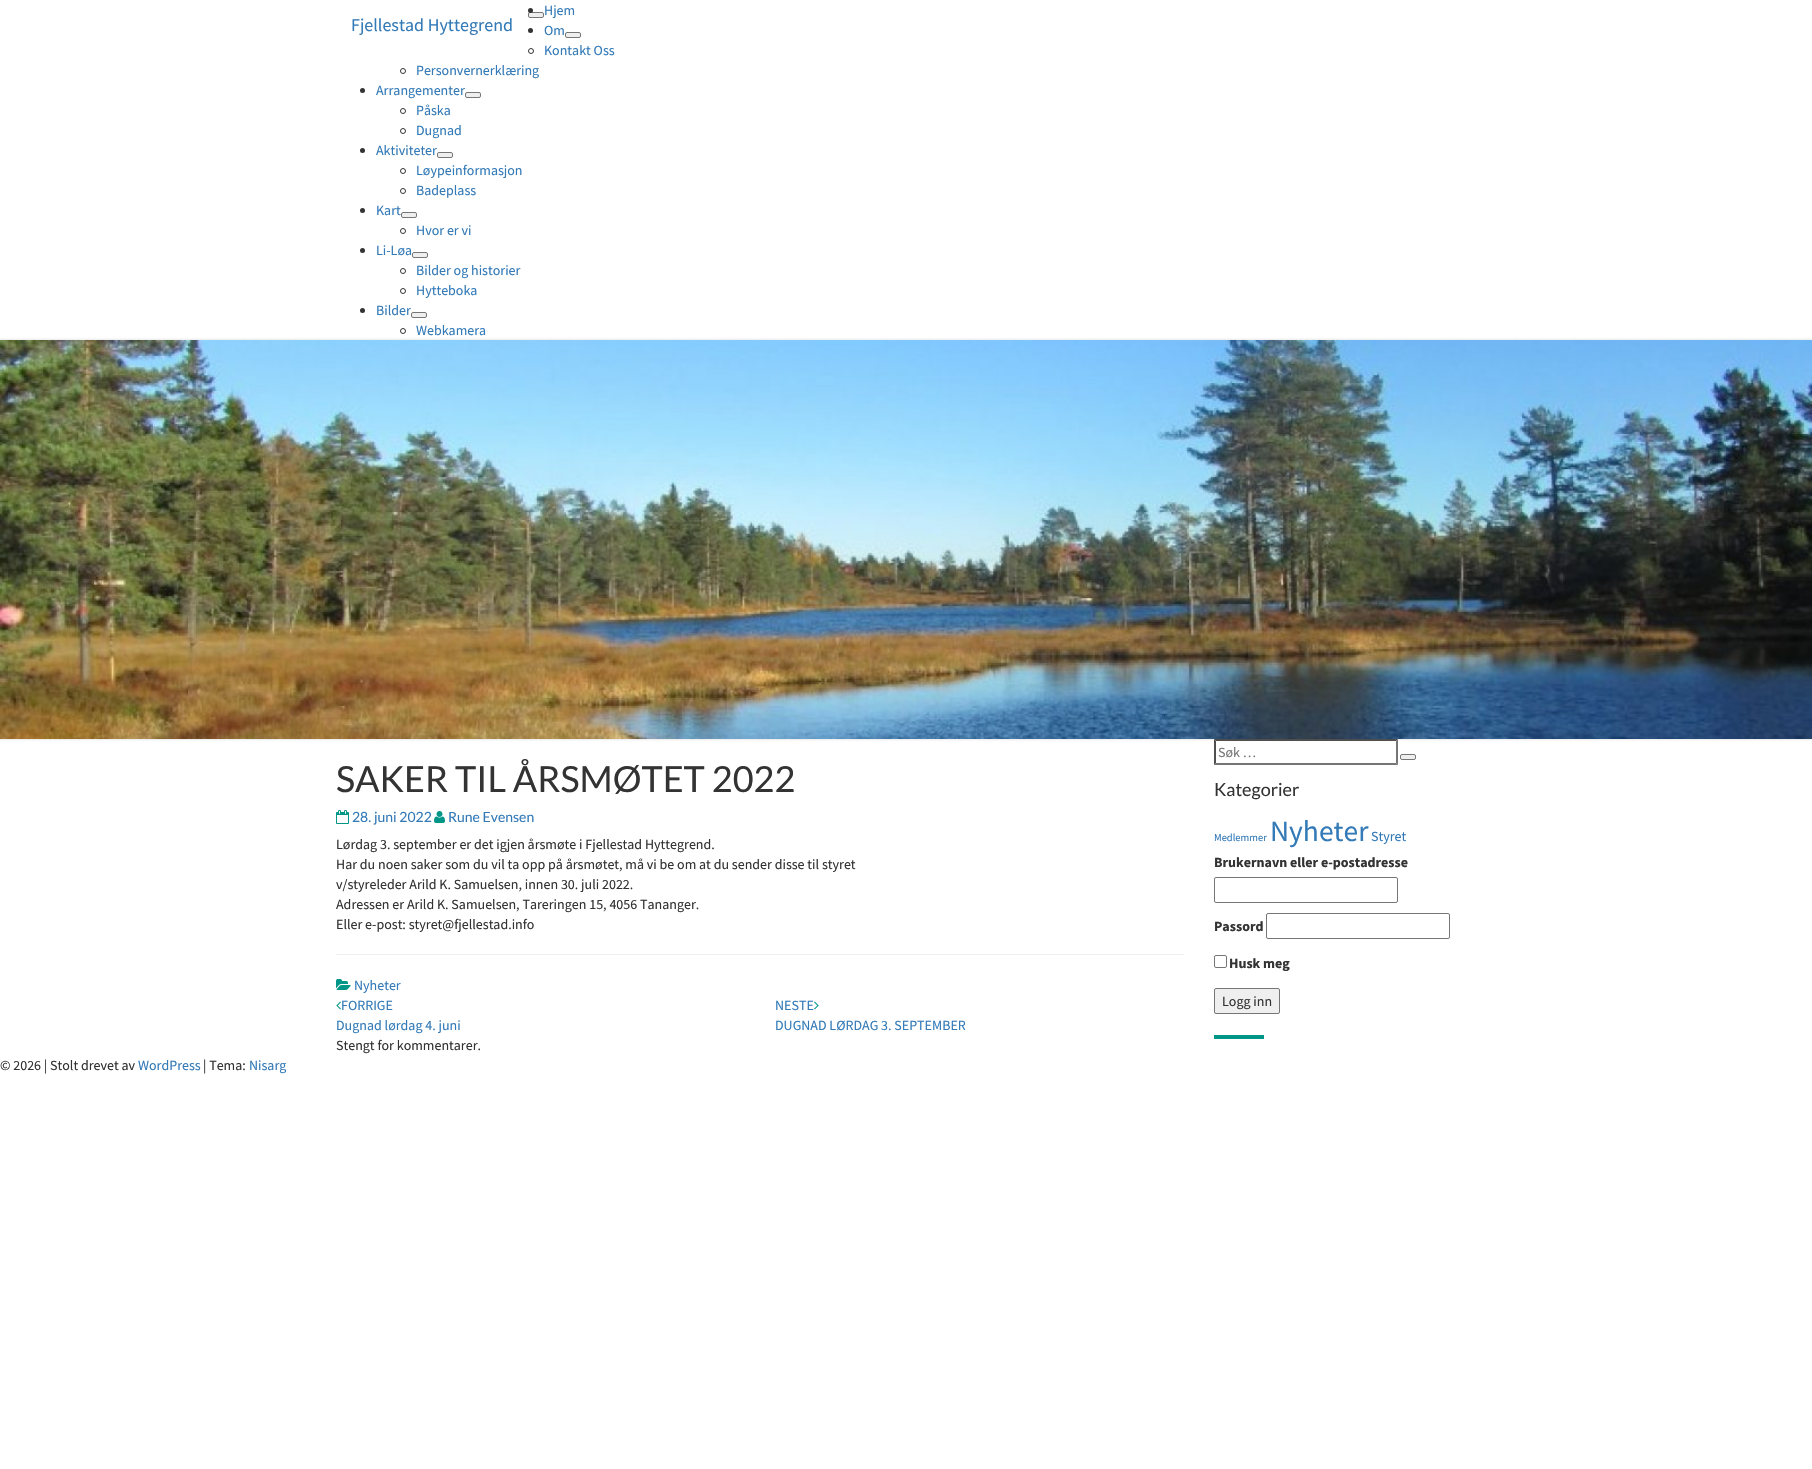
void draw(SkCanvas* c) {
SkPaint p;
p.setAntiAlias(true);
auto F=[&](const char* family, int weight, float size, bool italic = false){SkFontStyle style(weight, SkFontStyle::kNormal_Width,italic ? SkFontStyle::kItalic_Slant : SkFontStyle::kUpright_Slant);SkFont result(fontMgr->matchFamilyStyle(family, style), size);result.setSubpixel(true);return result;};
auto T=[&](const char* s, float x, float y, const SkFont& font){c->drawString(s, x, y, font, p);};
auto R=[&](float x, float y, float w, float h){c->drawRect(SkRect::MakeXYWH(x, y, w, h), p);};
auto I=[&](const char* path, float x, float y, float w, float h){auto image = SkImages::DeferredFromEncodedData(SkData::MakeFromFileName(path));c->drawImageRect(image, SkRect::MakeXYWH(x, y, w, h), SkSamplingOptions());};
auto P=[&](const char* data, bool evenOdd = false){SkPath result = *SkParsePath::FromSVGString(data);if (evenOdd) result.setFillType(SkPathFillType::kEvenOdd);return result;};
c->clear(0xffffffff);
p.setColor(0xffefefef);
c->drawRoundRect(SkRect::MakeXYWH(528.5,12.5,15,5),1.5,1.5,p);
p.setStroke(true);
p.setStrokeWidth(1);
p.setColor(0xff767676);
c->drawRoundRect(SkRect::MakeXYWH(528.5,12.5,15,5),1.5,1.5,p);
p.setStroke(false);
p.setColor(0xff333333);
c->drawCircle(530.5,10.5,2.5,p);
auto f1 = F("Source Sans Pro",400,14);
p.setColor(0xff337ab7);
T("Hjem",544,15,f1);
p.setColor(0xff333333);
c->drawCircle(530.5,30.5,2.5,p);
p.setColor(0xff337ab7);
T("Om",544,35,f1);
p.setColor(0xffefefef);
c->drawRoundRect(SkRect::MakeXYWH(565.5,32.5,15,5),1.5,1.5,p);
p.setStroke(true);
p.setColor(0xff767676);
c->drawRoundRect(SkRect::MakeXYWH(565.5,32.5,15,5),1.5,1.5,p);
p.setColor(0xff333333);
c->drawCircle(531,51,2.5,p);
p.setStroke(false);
p.setColor(0xff337ab7);
T("Kontakt Oss",544,55,f1);
p.setStroke(true);
p.setColor(0xff333333);
c->drawCircle(403,71,2.5,p);
p.setStroke(false);
p.setColor(0xff337ab7);
T("Personvernerklæring",416,75,f1);
p.setColor(0xff333333);
c->drawCircle(362.5,90.5,2.5,p);
p.setColor(0xff337ab7);
T("Arrangementer",376,95,f1);
p.setColor(0xffefefef);
c->drawRoundRect(SkRect::MakeXYWH(465.5,92.5,15,5),1.5,1.5,p);
p.setStroke(true);
p.setColor(0xff767676);
c->drawRoundRect(SkRect::MakeXYWH(465.5,92.5,15,5),1.5,1.5,p);
p.setColor(0xff333333);
c->drawCircle(403,111,2.5,p);
p.setStroke(false);
p.setColor(0xff337ab7);
T("Påska",416,115,f1);
p.setStroke(true);
p.setColor(0xff333333);
c->drawCircle(403,131,2.5,p);
p.setStroke(false);
p.setColor(0xff337ab7);
T("Dugnad",416,135,f1);
p.setColor(0xff333333);
c->drawCircle(362.5,150.5,2.5,p);
p.setColor(0xff337ab7);
T("Aktiviteter",376,155,f1);
p.setColor(0xffefefef);
c->drawRoundRect(SkRect::MakeXYWH(437.5,152.5,15,5),1.5,1.5,p);
p.setStroke(true);
p.setColor(0xff767676);
c->drawRoundRect(SkRect::MakeXYWH(437.5,152.5,15,5),1.5,1.5,p);
p.setColor(0xff333333);
c->drawCircle(403,171,2.5,p);
p.setStroke(false);
p.setColor(0xff337ab7);
T("Løypeinformasjon",416,175,f1);
p.setStroke(true);
p.setColor(0xff333333);
c->drawCircle(403,191,2.5,p);
p.setStroke(false);
p.setColor(0xff337ab7);
T("Badeplass",416,195,f1);
p.setColor(0xff333333);
c->drawCircle(362.5,210.5,2.5,p);
p.setColor(0xff337ab7);
T("Kart",376,215,f1);
p.setColor(0xffefefef);
c->drawRoundRect(SkRect::MakeXYWH(401.5,212.5,15,5),1.5,1.5,p);
p.setStroke(true);
p.setColor(0xff767676);
c->drawRoundRect(SkRect::MakeXYWH(401.5,212.5,15,5),1.5,1.5,p);
p.setColor(0xff333333);
c->drawCircle(403,231,2.5,p);
p.setStroke(false);
p.setColor(0xff337ab7);
T("Hvor er vi",416,235,f1);
p.setColor(0xff333333);
c->drawCircle(362.5,250.5,2.5,p);
p.setColor(0xff337ab7);
T("Li-Løa",376,255,f1);
p.setColor(0xffefefef);
c->drawRoundRect(SkRect::MakeXYWH(412.5,252.5,15,5),1.5,1.5,p);
p.setStroke(true);
p.setColor(0xff767676);
c->drawRoundRect(SkRect::MakeXYWH(412.5,252.5,15,5),1.5,1.5,p);
p.setColor(0xff333333);
c->drawCircle(403,271,2.5,p);
p.setStroke(false);
p.setColor(0xff337ab7);
T("Bilder og historier",416,275,f1);
p.setStroke(true);
p.setColor(0xff333333);
c->drawCircle(403,291,2.5,p);
p.setStroke(false);
p.setColor(0xff337ab7);
T("Hytteboka",416,295,f1);
p.setColor(0xff333333);
c->drawCircle(362.5,310.5,2.5,p);
p.setColor(0xff337ab7);
T("Bilder",376,315,f1);
p.setColor(0xffefefef);
c->drawRoundRect(SkRect::MakeXYWH(411.5,312.5,15,5),1.5,1.5,p);
p.setStroke(true);
p.setColor(0xff767676);
c->drawRoundRect(SkRect::MakeXYWH(411.5,312.5,15,5),1.5,1.5,p);
p.setColor(0xff333333);
c->drawCircle(403,331,2.5,p);
p.setStroke(false);
p.setColor(0x4db6b6b6);
p.setMaskFilter(SkMaskFilter::MakeBlur(kNormal_SkBlurStyle, 1));
c->drawRect(SkRect::MakeXYWH(-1,339,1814,401),p);
p.setMaskFilter(nullptr);
p.setColor(0xff337ab7);
T("Webkamera",416,335,f1);
auto f2 = F("Source Sans Pro",400,18);
T("Fjellestad Hyttegrend",351,31,f2);
I("1.png",0,340,1812,399);
auto f3 = F("Lato",400,36);
p.setColor(0xff333333);
T("SAKER TIL ÅRSMØTET 2022",336,792,f3);
I("2.png",336,810,13,14);
auto f4 = F("Lato",400,14);
p.setColor(0xff337ab7);
T("28. juni 2022",352,822,f4);
I("3.png",434,811,11,12);
T("Rune Evensen",448,822,f4);
p.setColor(0xff333333);
T("Lørdag 3. september er det igjen årsmøte i Fjellestad Hyttegrend.",336,849,f1);
T("Har du noen saker som du vil ta opp på årsmøtet, må vi be om at du sender disse til styret",336,869,f1);
T("v/styreleder Arild K. Samuelsen, innen 30. juli 2022.",336,889,f1);
T("Adressen er Arild K. Samuelsen, Tareringen 15, 4056 Tananger.",336,909,f1);
T("Eller e-post: styret@fjellestad.info",336,929,f1);
p.setColor(0xffeeeeee);
R(336,954,848,1);
I("4.png",336,979,15,11);
p.setColor(0xff337ab7);
T("Nyheter",354,990,f1);
I("5.png",336,1001,5,9);
T("FORRIGE",341,1010,f1);
T("Dugnad lørdag 4. juni",336,1030,f1);
T("NESTE",775,1010,f1);
I("6.png",814,1001,5,9);
T("DUGNAD LØRDAG 3. SEPTEMBER",775,1030,f1);
p.setColor(0xff333333);
T("Stengt for kommentarer.",336,1050,f1);
p.setColor(0xffffffff);
R(1214,739,184,2);
p.setColor(0xff4f4f4f);
c->drawPath(P("M1214 739h184l-2 2h-180z"),p);
p.setColor(0xff767676);
c->drawPath(P("M1398 739v26l-2-2v-22z"),p);
c->drawPath(P("M1398 765h-184l2-2h180z"),p);
p.setColor(0xff4f4f4f);
c->drawPath(P("M1214 765v-26l2 2v22z"),p);
p.setColor(0xff757575);
T("Søk …",1218,757,f1);
p.setColor(0xffefefef);
c->drawRoundRect(SkRect::MakeXYWH(1400.5,754.5,15,5),1.5,1.5,p);
p.setStroke(true);
p.setColor(0xff767676);
c->drawRoundRect(SkRect::MakeXYWH(1400.5,754.5,15,5),1.5,1.5,p);
auto f5 = F("Lato",400,18);
p.setStroke(false);
p.setColor(0xff333333);
T("Kategorier",1214,796,f5);
p.setColor(0xff009688);
R(1214,1035,50,4);
auto f6 = F("Source Sans Pro",400,10.5);
p.setColor(0xff337ab7);
T("Medlemmer",1214,841,f6);
auto f7 = F("Source Sans Pro",400,29.5);
T("Nyheter",1270,841,f7);
T("Styret",1371,841,f1);
auto f8 = F("Source Sans Pro",700,14);
p.setColor(0xff333333);
T("Brukernavn eller e-postadresse",1214,867,f8);
p.setStroke(true);
p.setColor(0xff767676);
c->drawRoundRect(SkRect::MakeXYWH(1214.5,877.5,183,25),1.5,1.5,p);
p.setStroke(false);
p.setColor(0xff333333);
T("Passord",1214,931,f8);
p.setStroke(true);
p.setColor(0xff767676);
c->drawRoundRect(SkRect::MakeXYWH(1266.5,913.5,183,25),1.5,1.5,p);
c->drawRoundRect(SkRect::MakeXYWH(1214.5,955.5,12,12),1.5,1.5,p);
p.setStroke(false);
p.setColor(0xff333333);
T("Husk meg",1229,968,f8);
p.setColor(0xffefefef);
c->drawRoundRect(SkRect::MakeXYWH(1214.5,988.5,65,25),1.5,1.5,p);
p.setStroke(true);
p.setColor(0xff767676);
c->drawRoundRect(SkRect::MakeXYWH(1214.5,988.5,65,25),1.5,1.5,p);
p.setStroke(false);
p.setColor(0xff333333);
T("Logg inn",1222,1006,f1);
T("© 2026 | Stolt drevet av",0,1070,f1);
p.setColor(0xff337ab7);
T("WordPress",138,1070,f1);
p.setColor(0xff333333);
T("| Tema:",203,1070,f1);
p.setColor(0xff337ab7);
T("Nisarg",249,1070,f1);
}
